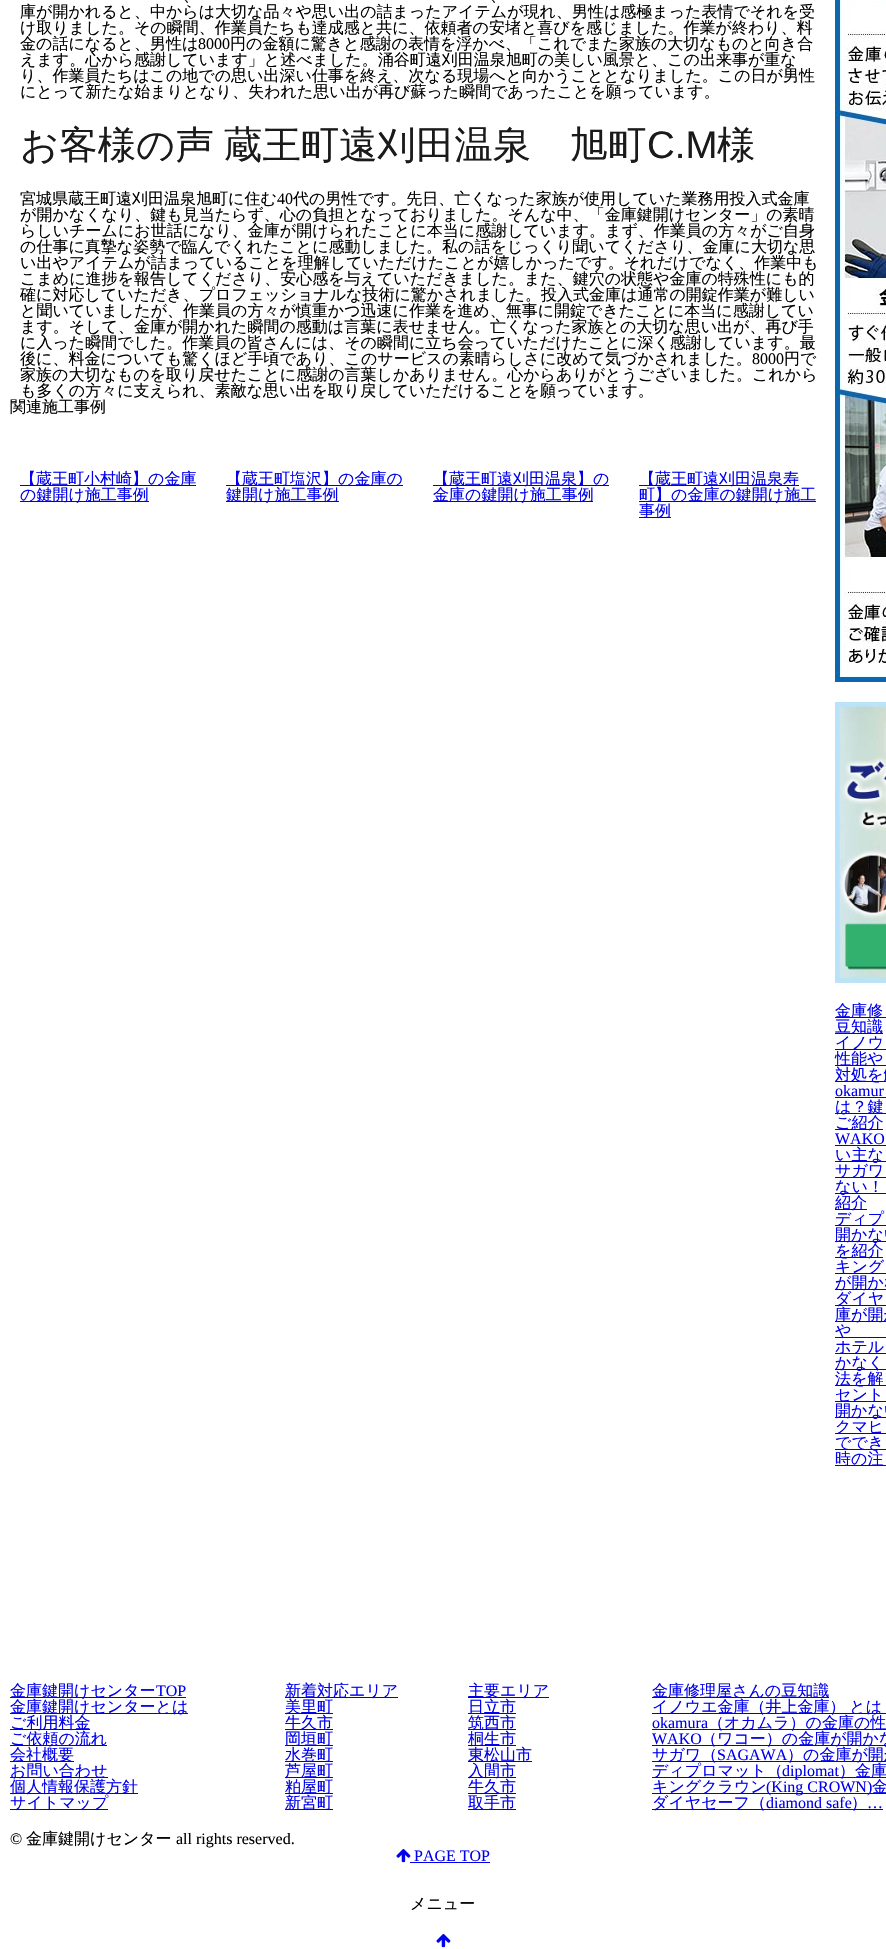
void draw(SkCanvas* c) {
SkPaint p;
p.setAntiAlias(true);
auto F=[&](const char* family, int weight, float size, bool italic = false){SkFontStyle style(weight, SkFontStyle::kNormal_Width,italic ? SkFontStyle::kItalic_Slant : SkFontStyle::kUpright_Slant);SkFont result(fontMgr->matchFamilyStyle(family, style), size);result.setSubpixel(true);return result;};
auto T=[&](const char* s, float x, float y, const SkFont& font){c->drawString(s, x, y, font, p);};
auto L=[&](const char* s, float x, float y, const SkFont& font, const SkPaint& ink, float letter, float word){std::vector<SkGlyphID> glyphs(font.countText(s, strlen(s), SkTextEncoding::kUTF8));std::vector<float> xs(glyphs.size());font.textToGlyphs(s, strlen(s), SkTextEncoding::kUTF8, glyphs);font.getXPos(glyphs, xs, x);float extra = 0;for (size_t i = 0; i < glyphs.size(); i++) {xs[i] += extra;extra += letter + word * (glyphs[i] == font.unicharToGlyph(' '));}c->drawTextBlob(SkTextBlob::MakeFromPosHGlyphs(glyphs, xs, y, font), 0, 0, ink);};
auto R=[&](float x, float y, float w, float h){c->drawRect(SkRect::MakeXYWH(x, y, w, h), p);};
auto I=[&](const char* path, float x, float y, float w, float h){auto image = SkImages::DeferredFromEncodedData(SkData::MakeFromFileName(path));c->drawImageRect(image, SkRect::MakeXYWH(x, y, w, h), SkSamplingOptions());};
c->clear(0xffffffff);
auto f1 = F("WenQuanYi Zen Hei",500,16);
p.setColor(0xff000000);
T("、",183,1,f1);
T("、",490,1,f1);
T("庫が開かれると、中からは大切な品々や思い出の詰まったアイテムが現れ、男性は感極まった表情でそれを受",20,17,f1);
T("け取りました。その瞬間、作業員たちも達成感と共に、依頼者の安堵と喜びを感じました。作業が終わり、料",20,33,f1);
T("金の話になると、男性は",20,49,f1);
auto f2 = F("Liberation Serif",400,16);
T("8000",198,49,f2);
T("円の金額に驚きと感謝の表情を浮かべ、「これでまた家族の大切なものと向き合",230,49,f1);
T("えます。心から感謝しています」と述べました。涌谷町遠刈田温泉旭町の美しい風景と、この出来事が重な",20,65,f1);
T("り、作業員たちはこの地での思い出深い仕事を終え、次なる現場へと向かうこととなりました。この日が男性",20,81,f1);
T("にとって新たな始まりとなり、失われた思い出が再び蘇った瞬間であったことを願っています。",20,97,f1);
auto f3 = F("WenQuanYi Zen Hei",500,38.4);
p.setColor(0xff1a1a1a);
T("お客様の声",20,158,f3);
T("蔵王町遠刈田温泉　旭町",224,158,f3);
auto f4 = F("Liberation Sans",400,38.4);
T("C.M",647,158,f4);
T("様",717,158,f3);
p.setColor(0xff000000);
T("宮城県蔵王町遠刈田温泉旭町に住む",20,204,f1);
T("40",277,204,f2);
T("代の男性です。先日、亡くなった家族が使用していた業務用投入式金庫",293,204,f1);
T("が開かなくなり、鍵も見当たらず、心の負担となっておりました。そんな中、「金庫鍵開けセンター」の素晴",20,220,f1);
T("らしいチームにお世話になり、金庫が開けられたことに本当に感謝しています。まず、作業員の方々がご自身",20,236,f1);
T("の仕事に真摯な姿勢で臨んでくれたことに感動しました。私の話をじっくり聞いてくださり、金庫に大切な思",20,252,f1);
T("い出やアイテムが詰まっていることを理解していただけたことが嬉しかったです。それだけでなく、作業中も",20,268,f1);
T("こまめに進捗を報告してくださり、安心感を与えていただきました。また、鍵穴の状態や金庫の特殊性にも的",20,284,f1);
T("確に対応していただき、プロフェッショナルな技術に驚かされました。投入式金庫は通常の開錠作業が難しい",20,300,f1);
T("と聞いていましたが、作業員の方々が慎重かつ迅速に作業を進め、無事に開錠できたことに本当に感謝してい",20,316,f1);
T("ます。そして、金庫が開かれた瞬間の感動は言葉に表せません。亡くなった家族との大切な思い出が、再び手",20,332,f1);
T("に入った瞬間でした。作業員の皆さんには、その瞬間に立ち会っていただけたことに深く感謝しています。最",20,348,f1);
T("後に、料金についても驚くほど手頃であり、このサービスの素晴らしさに改めて気づかされました。",20,364,f1);
T("8000",752,364,f2);
T("円で",784,364,f1);
T("家族の大切なものを取り戻せたことに感謝の言葉しかありません。心からありがとうございました。これから",20,380,f1);
T("も多くの方々に支えられ、素敵な思い出を取り戻していただけることを願っています。",20,396,f1);
T("関連施工事例",10,412,f1);
p.setColor(0xff0000ee);
R(20,485,176,1);
T("【蔵王町小村崎】の金庫",20,484,f1);
R(20,501,129,1);
T("の鍵開け施工事例",20,500,f1);
R(226,485,177,1);
T("【蔵王町塩沢】の金庫の",226,484,f1);
R(226,501,113,1);
T("鍵開け施工事例",226,500,f1);
R(433,485,176,1);
T("【蔵王町遠刈田温泉】の",433,484,f1);
R(433,501,160,1);
T("金庫の鍵開け施工事例",433,500,f1);
R(639,485,160,1);
T("【蔵王町遠刈田温泉寿",639,484,f1);
R(639,501,177,1);
T("町】の金庫の鍵開け施工",639,500,f1);
R(639,517,32,1);
T("事例",639,516,f1);
I("1.png",835,0,51,682);
I("2.png",835,702,51,281);
R(835,1017,51,1);
T("金庫修",835,1016,f1);
R(835,1033,48,1);
T("豆知識",835,1032,f1);
R(835,1049,51,1);
L("イノウ",835,1048,f1,p,0,-1);
R(835,1065,51,1);
T("性能や",835,1064,f1);
R(835,1081,51,1);
T("対処を解",835,1080,f1);
T("okamur",835,1096,f2);
R(835,1097,51,1);
R(835,1113,51,1);
T("は？鍵",835,1112,f1);
R(835,1129,48,1);
T("ご紹介",835,1128,f1);
T("WAKO",835,1144,f2);
R(835,1145,51,1);
R(835,1161,51,1);
T("い主な",835,1160,f1);
R(835,1177,51,1);
T("サガワ",835,1176,f1);
R(835,1193,51,1);
T("ない！",835,1192,f1);
R(835,1209,32,1);
T("紹介",835,1208,f1);
R(835,1225,51,1);
T("ディプ",835,1224,f1);
R(835,1241,51,1);
L("開かない",835,1240,f1,p,0,-1);
R(835,1257,48,1);
T("を紹介",835,1256,f1);
R(835,1273,51,1);
T("キング",835,1272,f1);
R(835,1289,51,1);
T("が開かな",835,1288,f1);
R(835,1305,51,1);
T("ダイヤ",835,1304,f1);
R(835,1321,51,1);
T("庫が開か",835,1320,f1);
R(835,1337,51,1);
T("や",835,1336,f1);
R(835,1353,51,1);
T("ホテル",835,1352,f1);
R(835,1369,51,1);
T("かなく",835,1368,f1);
R(835,1385,51,1);
T("法を解",835,1384,f1);
R(835,1401,51,1);
T("セント",835,1400,f1);
R(835,1417,51,1);
T("開かない",835,1416,f1);
R(835,1433,51,1);
T("クマヒ",835,1432,f1);
R(835,1449,51,1);
T("ででき",835,1448,f1);
R(835,1465,51,1);
T("時の注",835,1464,f1);
R(10,1697,176,1);
T("金庫鍵開けセンター",10,1696,f1);
T("TOP",156,1696,f2);
R(10,1713,178,1);
T("金庫鍵開けセンターとは",10,1712,f1);
R(10,1729,80,1);
T("ご利用料金",10,1728,f1);
R(10,1745,97,1);
T("ご依頼の流れ",10,1744,f1);
R(10,1761,64,1);
T("会社概要",10,1760,f1);
R(10,1777,98,1);
T("お問い合わせ",10,1776,f1);
R(10,1793,128,1);
T("個人情報保護方針",10,1792,f1);
R(10,1809,98,1);
T("サイトマップ",10,1808,f1);
R(285,1697,113,1);
T("新着対応エリア",285,1696,f1);
R(285,1713,48,1);
T("美里町",285,1712,f1);
R(285,1729,48,1);
T("牛久市",285,1728,f1);
R(285,1745,48,1);
T("岡垣町",285,1744,f1);
R(285,1761,48,1);
T("水巻町",285,1760,f1);
R(285,1777,48,1);
T("芦屋町",285,1776,f1);
R(285,1793,48,1);
T("粕屋町",285,1792,f1);
R(285,1809,48,1);
T("新宮町",285,1808,f1);
R(468,1697,81,1);
T("主要エリア",468,1696,f1);
R(468,1713,48,1);
T("日立市",468,1712,f1);
R(468,1729,48,1);
T("筑西市",468,1728,f1);
R(468,1745,48,1);
T("桐生市",468,1744,f1);
R(468,1761,64,1);
T("東松山市",468,1760,f1);
R(468,1777,48,1);
T("入間市",468,1776,f1);
R(468,1793,48,1);
T("牛久市",468,1792,f1);
R(468,1809,48,1);
T("取手市",468,1808,f1);
R(652,1697,177,1);
T("金庫修理屋さんの豆知識",652,1696,f1);
R(652,1713,234,1);
L("イノウエ金庫（井上金庫） とは",652,1712,f1,p,0,-1);
T("okamura",652,1728,f2);
R(652,1729,234,1);
T("（オカムラ）の金庫の性",708,1728,f1);
T("WAKO",652,1744,f2);
R(652,1745,234,1);
T("（ワコー）の金庫が開かな",701,1744,f1);
R(652,1761,234,1);
T("サガワ（",652,1760,f1);
T("SAGAWA",717,1760,f2);
T("）の金庫が開か",787,1760,f1);
R(652,1777,234,1);
T("ディプロマット（",652,1776,f1);
T("diplomat",782,1776,f2);
T("）金庫",839,1776,f1);
R(652,1793,234,1);
T("キングクラウン",652,1792,f1);
T("(King CROWN)",766,1792,f2);
T("金",872,1792,f1);
R(652,1809,231,1);
T("ダイヤセーフ（",652,1808,f1);
T("diamond safe",766,1808,f2);
T("）",851,1808,f1);
T("…",867,1808,f2);
p.setColor(0xff000000);
T("©",10,1844,f2);
T("金庫鍵開けセンター",26,1844,f1);
T("all rights reserved.",176,1844,f2);
I("3.png",396,1849,15,14);
p.setColor(0xff0000ee);
T("PAGE TOP",414,1861,f2);
R(410,1862,80,1);
p.setColor(0xff000000);
T("メニュー",410,1909,f1);
I("3.png",436,1934,15,14);
}
